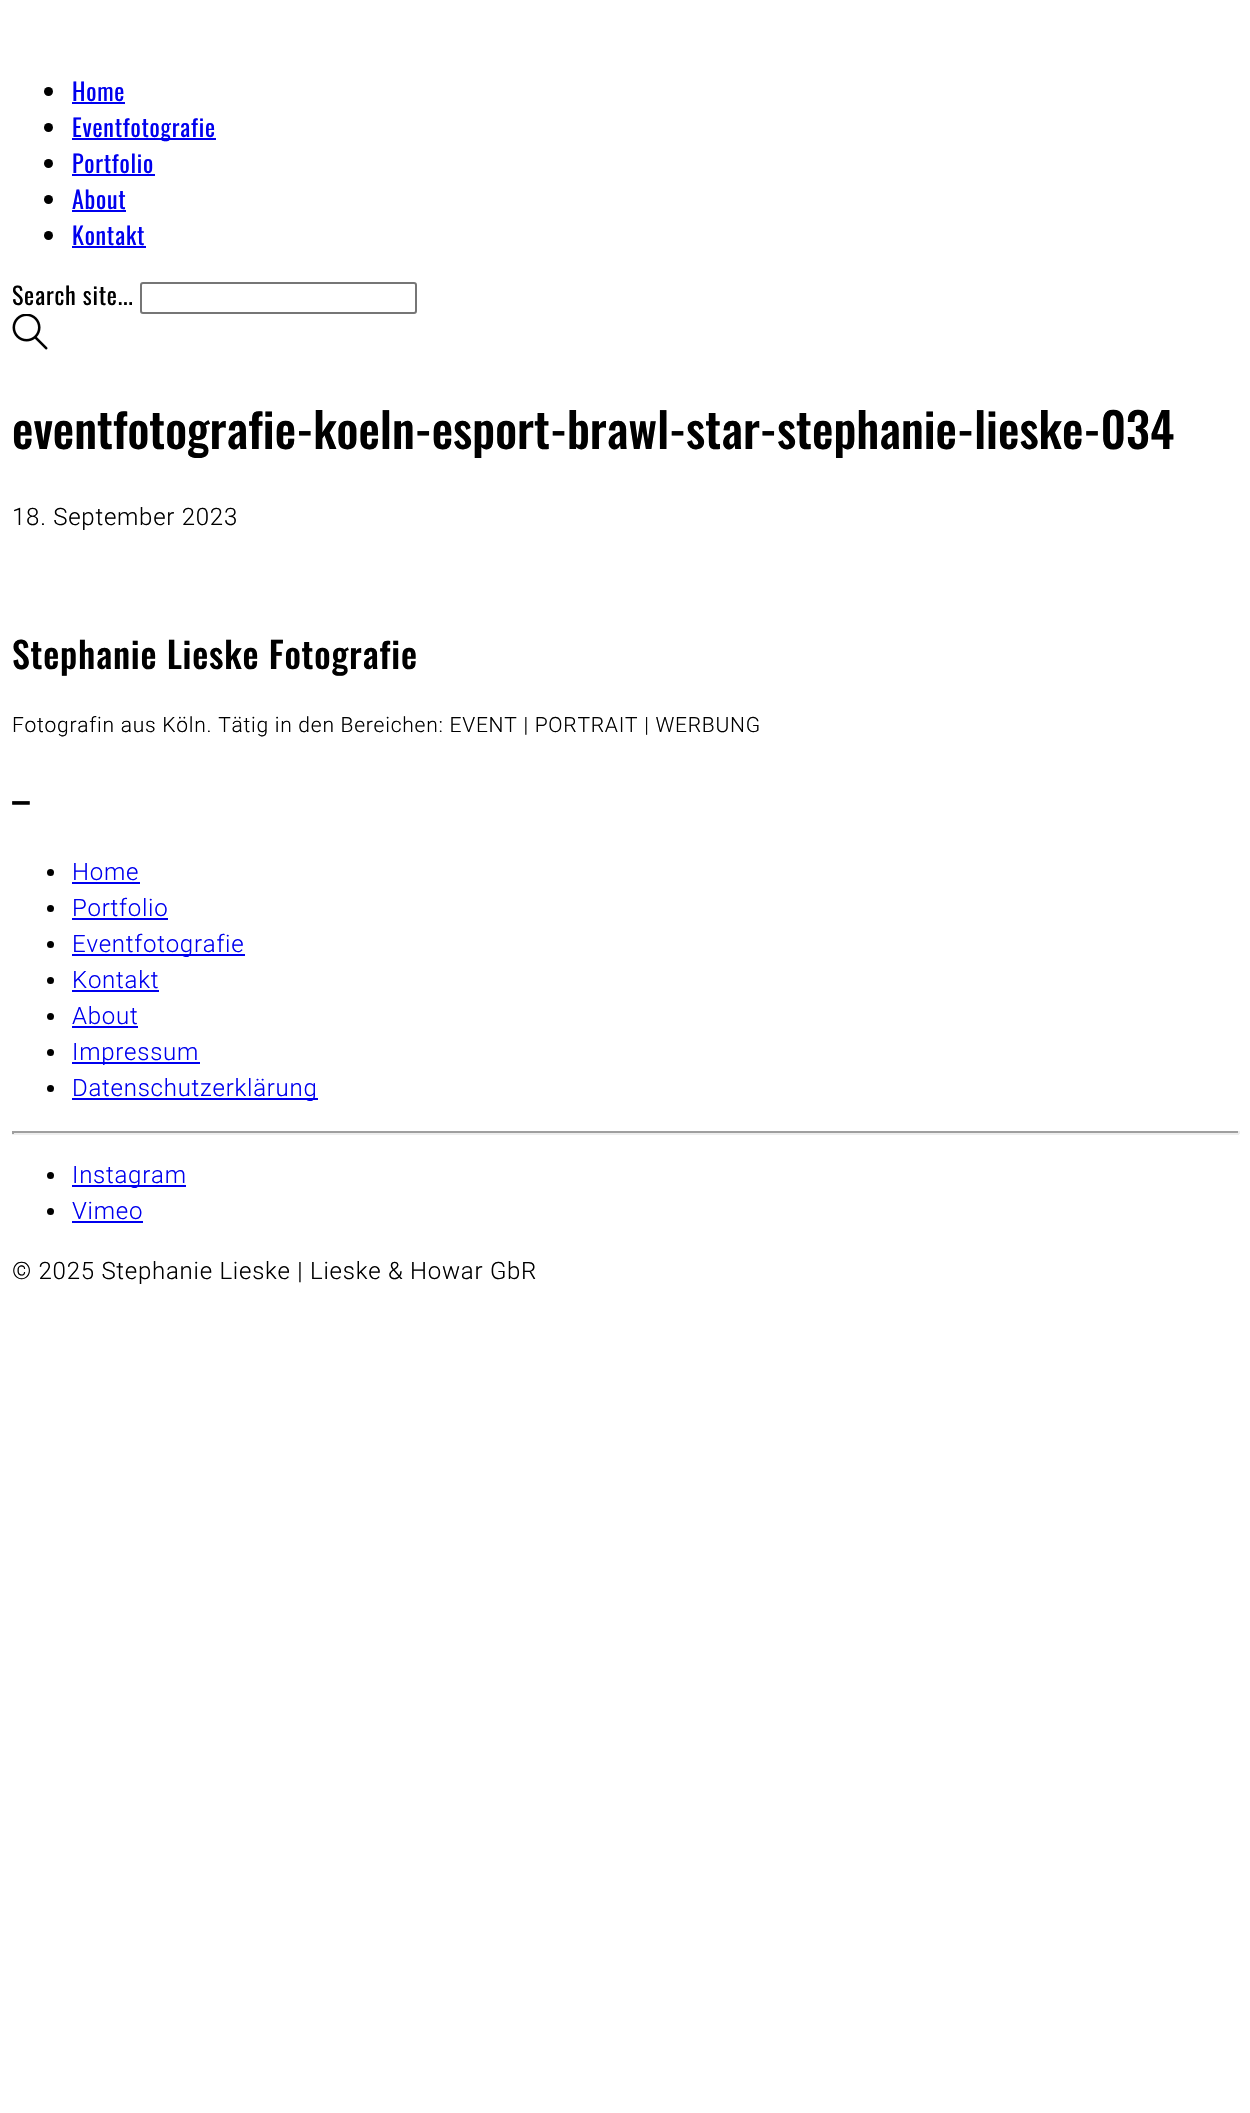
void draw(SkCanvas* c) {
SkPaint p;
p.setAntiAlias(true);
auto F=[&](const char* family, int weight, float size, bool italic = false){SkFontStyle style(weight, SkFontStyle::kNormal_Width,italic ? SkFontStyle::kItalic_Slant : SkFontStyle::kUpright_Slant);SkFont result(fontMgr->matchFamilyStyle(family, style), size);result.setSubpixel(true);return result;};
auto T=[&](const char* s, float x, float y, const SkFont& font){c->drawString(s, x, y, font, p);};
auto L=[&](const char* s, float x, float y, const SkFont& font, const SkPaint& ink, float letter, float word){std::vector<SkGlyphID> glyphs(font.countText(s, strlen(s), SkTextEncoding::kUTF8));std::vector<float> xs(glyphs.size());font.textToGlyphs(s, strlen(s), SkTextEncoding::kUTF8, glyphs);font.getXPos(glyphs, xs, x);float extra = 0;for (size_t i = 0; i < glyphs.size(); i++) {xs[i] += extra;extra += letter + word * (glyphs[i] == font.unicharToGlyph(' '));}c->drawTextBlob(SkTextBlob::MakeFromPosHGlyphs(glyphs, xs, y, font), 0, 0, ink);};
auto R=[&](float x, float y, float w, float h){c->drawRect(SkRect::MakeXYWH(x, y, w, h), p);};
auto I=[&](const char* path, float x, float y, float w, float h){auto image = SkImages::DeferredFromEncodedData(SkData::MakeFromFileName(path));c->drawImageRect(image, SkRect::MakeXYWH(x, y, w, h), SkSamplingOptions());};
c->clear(0xffffffff);
p.setColor(0xff000000);
c->drawCircle(48.5,91.5,4.5,p);
auto f1 = F("Oswald",400,24);
p.setColor(0xff0000ee);
L("Home",72,101,f1,p,.75,0);
R(72,102,53,2);
p.setColor(0xff000000);
c->drawCircle(48.5,127.5,4.5,p);
p.setColor(0xff0000ee);
R(72,138,144,2);
L("Eventfotografie",72,137,f1,p,.75,0);
p.setColor(0xff000000);
c->drawCircle(48.5,163.5,4.5,p);
p.setColor(0xff0000ee);
L("Portfolio",72,173,f1,p,.75,0);
R(72,174,83,2);
p.setColor(0xff000000);
c->drawCircle(48.5,199.5,4.5,p);
p.setColor(0xff0000ee);
L("About",72,209,f1,p,.75,0);
R(72,210,54,2);
p.setColor(0xff000000);
c->drawCircle(48.5,235.5,4.5,p);
p.setColor(0xff0000ee);
L("Kontakt",72,245,f1,p,.75,0);
R(72,246,74,2);
p.setColor(0xff000000);
L("Search site...",12,305,f1,p,.75,0);
p.setStroke(true);
p.setStrokeWidth(2);
p.setColor(0xff767676);
c->drawRoundRect(SkRect::MakeXYWH(141,283,275,30),2,2,p);
I("1.png",12,314,36,36);
auto f2 = F("Oswald",500,48);
p.setStroke(false);
p.setColor(0xff000000);
T("eventfotografie-koeln-esport-brawl-star-stephanie-lieske-034",12,449,f2);
auto f3 = F("Roboto",300,24);
L("18. September 2023",12,525,f3,p,.75,0);
auto f4 = F("Oswald",500,36);
L("Stephanie Lieske Fotografie",12,669,f4,p,.75,0);
auto f5 = F("Roboto",300,21);
L("Fotografin aus Köln. Tätig in den Bereichen: EVENT | PORTRAIT | WERBUNG",12,732,f5,p,.75,0);
L("–",12,814,f4,p,.75,0);
c->drawCircle(50.5,872.5,3.5,p);
p.setColor(0xff0000ee);
L("Home",72,880,f3,p,.75,0);
R(72,882,68,2);
p.setColor(0xff000000);
c->drawCircle(50.5,908.5,3.5,p);
p.setColor(0xff0000ee);
L("Portfolio",72,916,f3,p,.75,0);
R(72,918,96,2);
p.setColor(0xff000000);
c->drawCircle(50.5,944.5,3.5,p);
p.setColor(0xff0000ee);
R(72,954,173,2);
L("Eventfotografie",72,952,f3,p,.75,0);
p.setColor(0xff000000);
c->drawCircle(50.5,980.5,3.5,p);
p.setColor(0xff0000ee);
L("Kontakt",72,988,f3,p,.75,0);
R(72,990,87,2);
p.setColor(0xff000000);
c->drawCircle(50.5,1016.5,3.5,p);
p.setColor(0xff0000ee);
L("About",72,1024,f3,p,.75,0);
R(72,1026,66,2);
p.setColor(0xff000000);
c->drawCircle(50.5,1052.5,3.5,p);
p.setColor(0xff0000ee);
R(72,1062,128,2);
L("Impressum",72,1060,f3,p,.75,0);
p.setColor(0xff000000);
c->drawCircle(50.5,1088.5,3.5,p);
p.setColor(0xff0000ee);
R(72,1098,246,2);
L("Datenschutzerklärung",72,1096,f3,p,.75,0);
p.setColor(0xff9f9f9f);
R(12,1131,1227,2);
p.setColor(0xffeeeeee);
R(1238,1131,2,3);
R(12,1133,1227,2);
p.setColor(0xff9f9f9f);
R(12,1131,2,3);
p.setColor(0xff000000);
c->drawCircle(50.5,1175.5,3.5,p);
p.setColor(0xff0000ee);
R(72,1185,114,2);
L("Instagram",72,1183,f3,p,.75,0);
p.setColor(0xff000000);
c->drawCircle(50.5,1211.5,3.5,p);
p.setColor(0xff0000ee);
L("Vimeo",72,1219,f3,p,.75,0);
R(72,1221,71,2);
p.setColor(0xff000000);
L("© 2025 Stephanie Lieske | Lieske & Howar GbR",12,1279,f3,p,.75,0);
}
